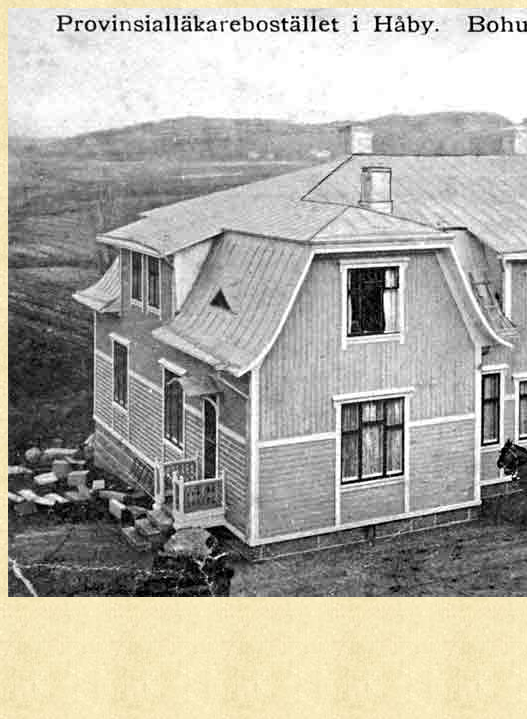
void draw(SkCanvas* c) {
SkPaint p;
p.setAntiAlias(true);
auto I=[&](const char* path, float x, float y, float w, float h){auto image = SkImages::DeferredFromEncodedData(SkData::MakeFromFileName(path));c->drawImageRect(image, SkRect::MakeXYWH(x, y, w, h), SkSamplingOptions());};
c->clear(0xffffffff);
I("1.png",0,0,527,719);
I("2.png",8,8,519,589);
}
